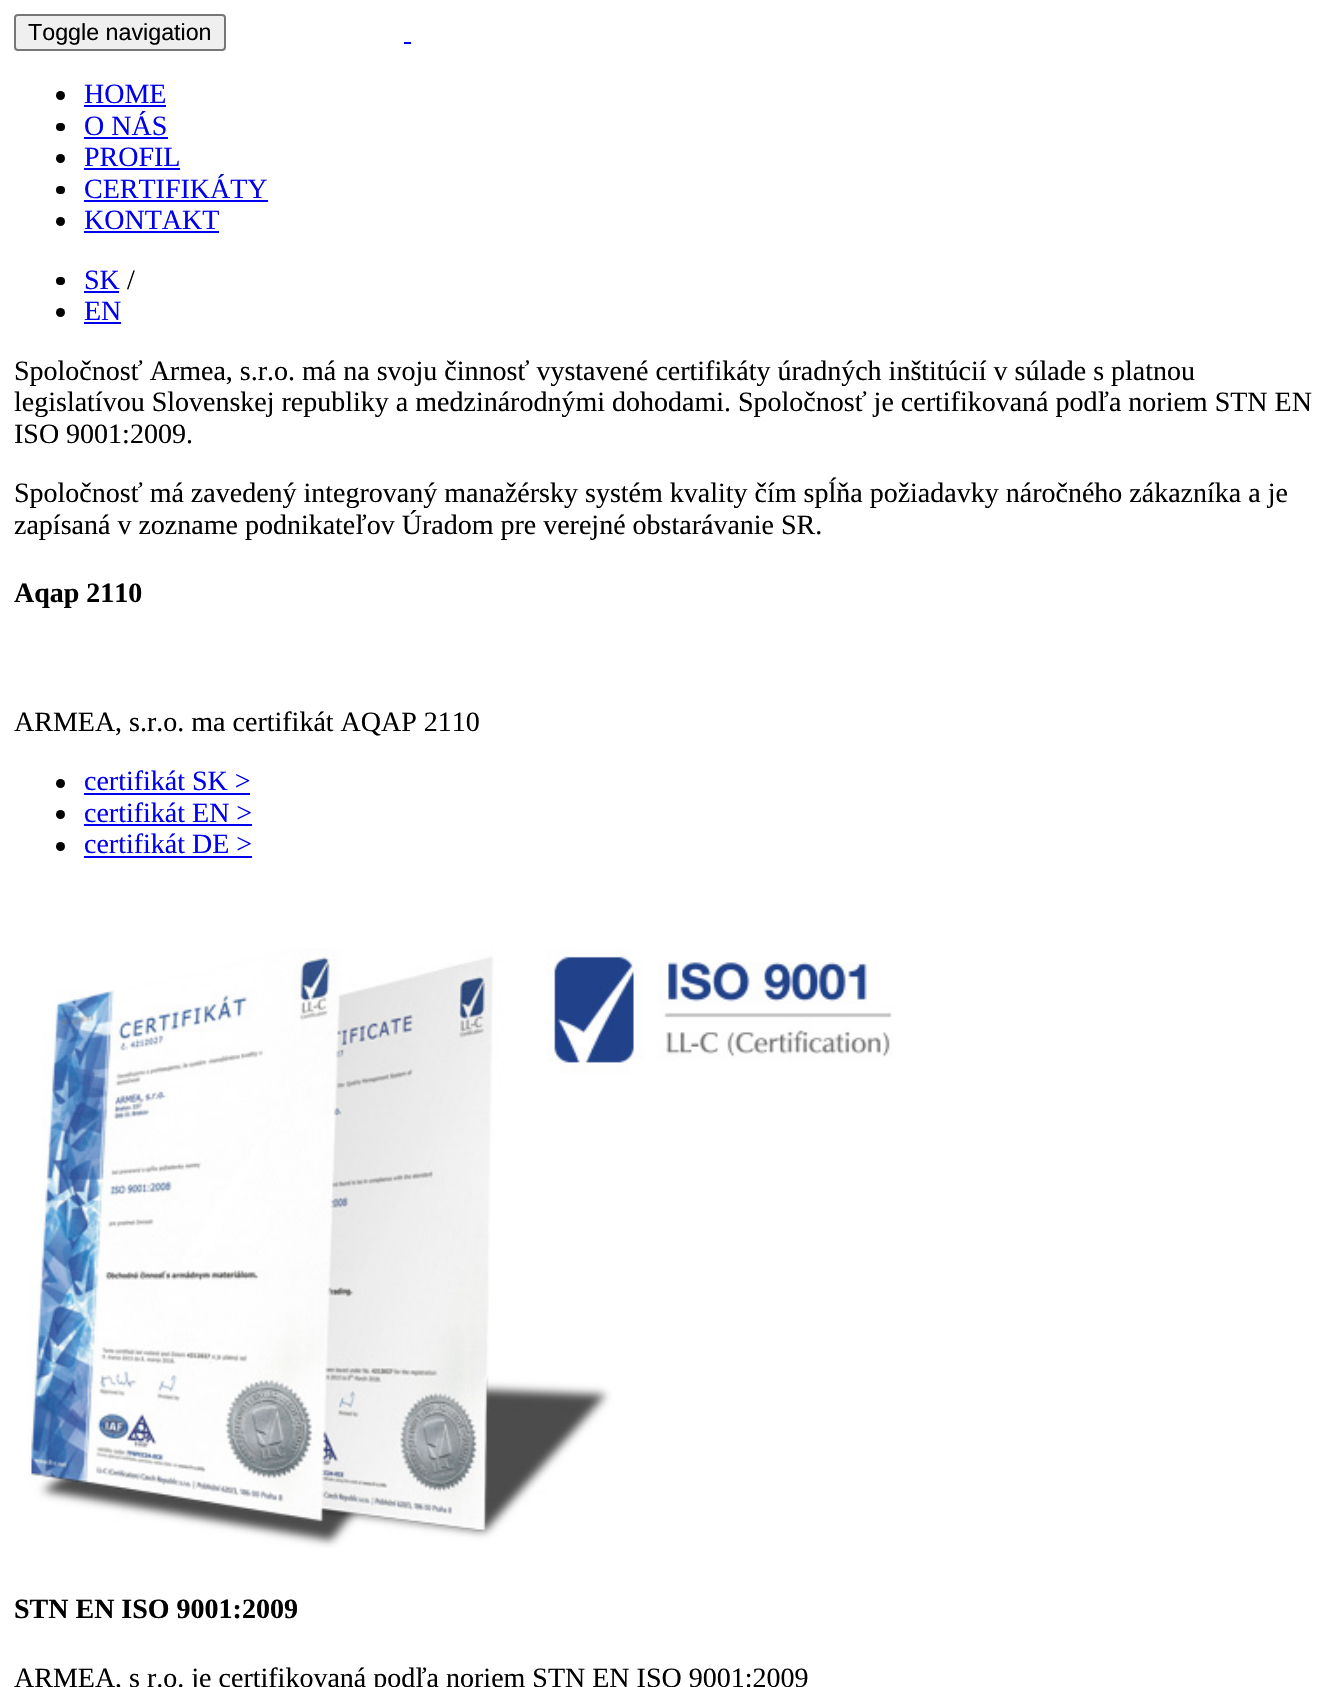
void draw(SkCanvas* c) {
SkPaint p;
p.setAntiAlias(true);
auto F=[&](const char* family, int weight, float size, bool italic = false){SkFontStyle style(weight, SkFontStyle::kNormal_Width,italic ? SkFontStyle::kItalic_Slant : SkFontStyle::kUpright_Slant);SkFont result(fontMgr->matchFamilyStyle(family, style), size);result.setSubpixel(true);return result;};
auto T=[&](const char* s, float x, float y, const SkFont& font){c->drawString(s, x, y, font, p);};
auto R=[&](float x, float y, float w, float h){c->drawRect(SkRect::MakeXYWH(x, y, w, h), p);};
auto Q=[&](float x, float y, float w, float h, float radius){c->drawRoundRect(SkRect::MakeXYWH(x, y, w, h), radius, radius, p);};
auto I=[&](const char* path, float x, float y, float w, float h){auto image = SkImages::DeferredFromEncodedData(SkData::MakeFromFileName(path));c->drawImageRect(image, SkRect::MakeXYWH(x, y, w, h), SkSamplingOptions());};
c->clear(0xffffffff);
p.setColor(0xffefefef);
c->drawRoundRect(SkRect::MakeXYWH(15,15,210,35),3,3,p);
p.setStroke(true);
p.setStrokeWidth(2);
p.setColor(0xff767676);
c->drawRoundRect(SkRect::MakeXYWH(15,15,210,35),3,3,p);
auto f1 = F("Liberation Sans",400,23.25);
p.setStroke(false);
p.setColor(0xff000000);
T("Toggle navigation",28,40,f1);
p.setColor(0xff0000ee);
R(404,42,7,2);
p.setColor(0xff000000);
c->drawCircle(60.5,95.5,4.5,p);
auto f2 = F("Liberation Serif",400,28);
p.setColor(0xff0000ee);
T("HOME",84,103,f2);
R(84,105,82,2);
p.setColor(0xff000000);
Q(56,123,9,8,4);
p.setColor(0xff0000ee);
T("O NÁS",84,135,f2);
R(84,137,84,2);
p.setColor(0xff000000);
c->drawCircle(60.5,158.5,4.5,p);
p.setColor(0xff0000ee);
T("PROFIL",84,166,f2);
R(84,168,96,2);
p.setColor(0xff000000);
Q(56,186,9,8,4);
p.setColor(0xff0000ee);
T("CERTIFIKÁTY",84,198,f2);
R(84,200,184,2);
p.setColor(0xff000000);
c->drawCircle(60.5,221.5,4.5,p);
p.setColor(0xff0000ee);
T("KONTAKT",84,229,f2);
R(84,231,135,2);
p.setColor(0xff000000);
Q(56,277,9,8,4);
p.setColor(0xff0000ee);
T("SK",84,289,f2);
R(84,291,35,2);
p.setColor(0xff000000);
T("/",127,289,f2);
c->drawCircle(60.5,312.5,4.5,p);
p.setColor(0xff0000ee);
T("EN",84,320,f2);
R(84,322,37,2);
p.setColor(0xff000000);
T("Spoločnosť Armea, s.r.o. má na svoju činnosť vystavené certifikáty úradných inštitúcií v súlade s platnou",14,380,f2);
T("legislatívou Slovenskej republiky a medzinárodnými dohodami. Spoločnosť je certifikovaná podľa noriem STN EN",14,411,f2);
T("ISO 9001:2009.",14,443,f2);
T("Spoločnosť má zavedený integrovaný manažérsky systém kvality čím spĺňa požiadavky náročného zákazníka a je",14,502,f2);
T("zapísaná v zozname podnikateľov Úradom pre verejné obstarávanie SR.",14,534,f2);
auto f3 = F("Liberation Serif",700,28);
T("Aqap 2110",14,602,f3);
T("ARMEA, s.r.o. ma certifikát AQAP 2110",14,731,f2);
c->drawCircle(60.5,783.5,4.5,p);
p.setColor(0xff0000ee);
T("certifikát SK >",84,790,f2);
R(84,793,166,2);
p.setColor(0xff000000);
c->drawCircle(60.5,814.5,4.5,p);
p.setColor(0xff0000ee);
T("certifikát EN >",84,822,f2);
R(84,824,168,2);
p.setColor(0xff000000);
c->drawCircle(60.5,846.5,4.5,p);
p.setColor(0xff0000ee);
T("certifikát DE >",84,853,f2);
R(84,856,168,2);
I("1.png",28,948,866,600);
p.setColor(0xff000000);
T("STN EN ISO 9001:2009",14,1618,f3);
T("ARMEA, s r.o. je certifikovaná podľa noriem STN EN ISO 9001:2009",14,1687,f2);
}
